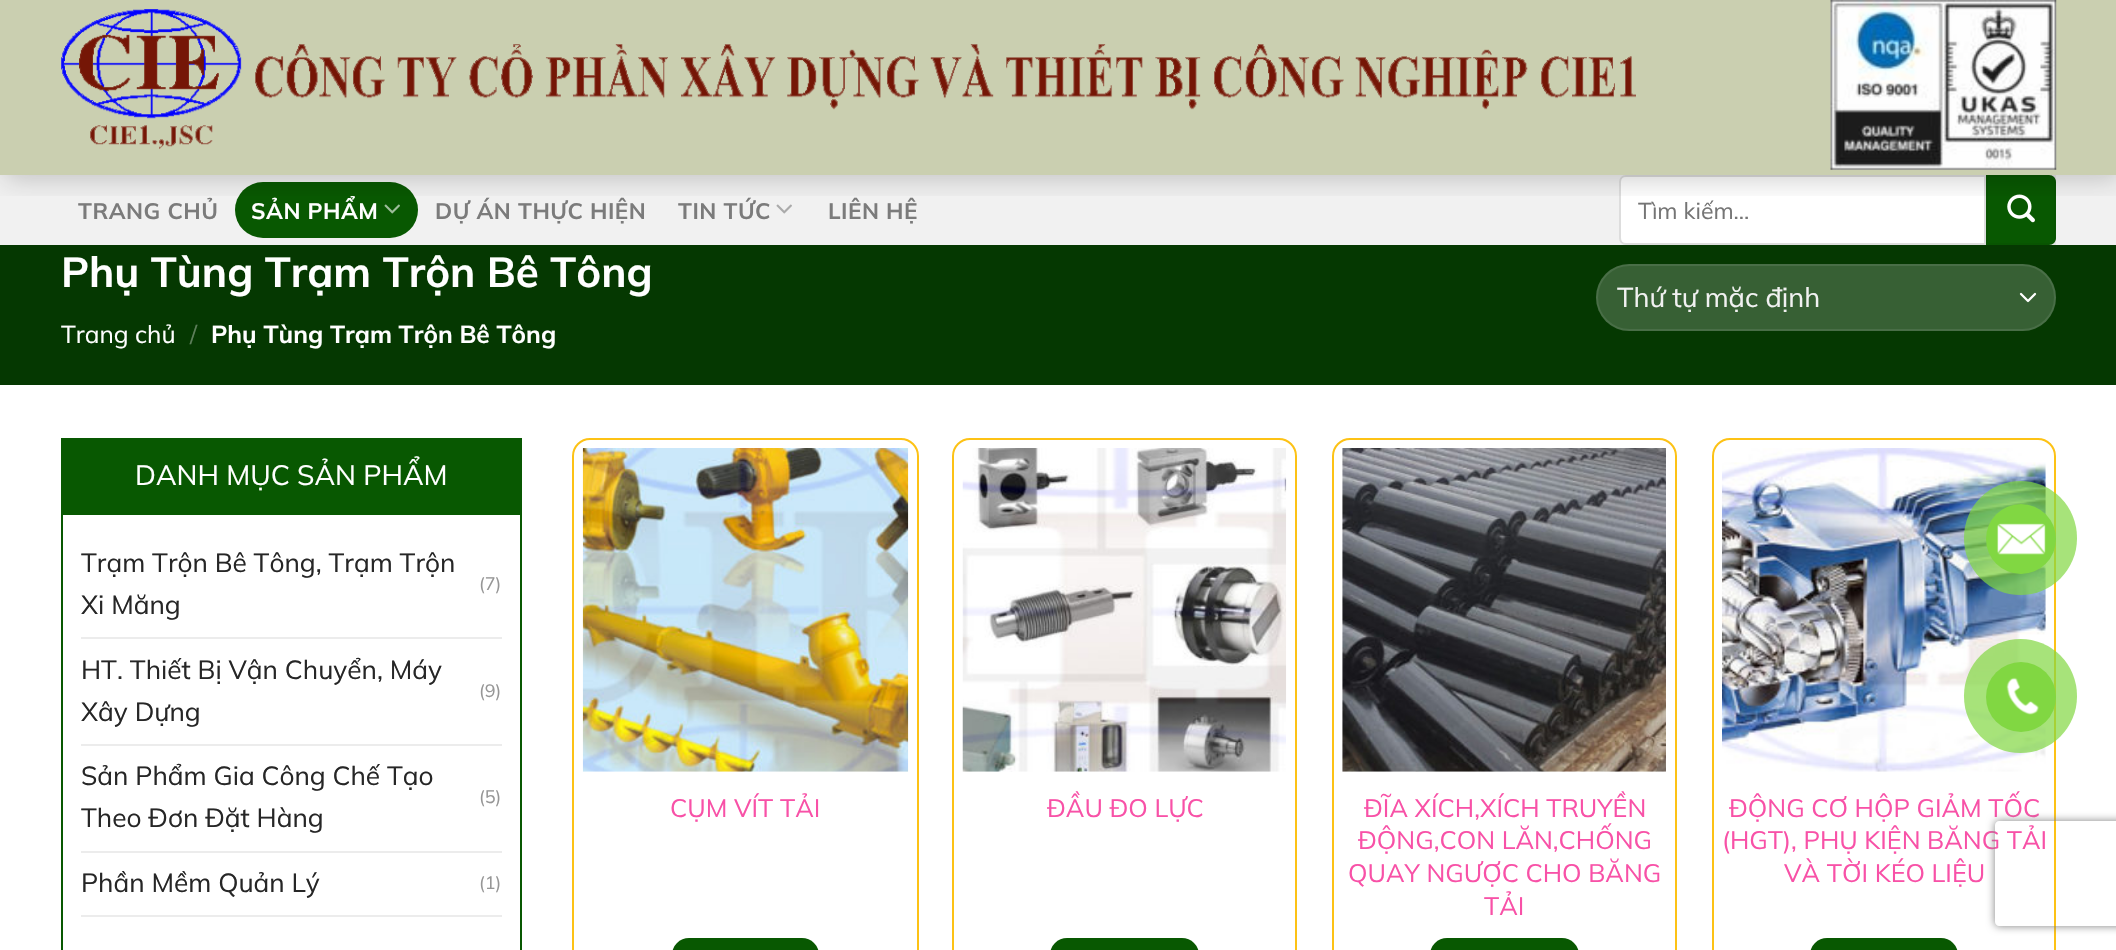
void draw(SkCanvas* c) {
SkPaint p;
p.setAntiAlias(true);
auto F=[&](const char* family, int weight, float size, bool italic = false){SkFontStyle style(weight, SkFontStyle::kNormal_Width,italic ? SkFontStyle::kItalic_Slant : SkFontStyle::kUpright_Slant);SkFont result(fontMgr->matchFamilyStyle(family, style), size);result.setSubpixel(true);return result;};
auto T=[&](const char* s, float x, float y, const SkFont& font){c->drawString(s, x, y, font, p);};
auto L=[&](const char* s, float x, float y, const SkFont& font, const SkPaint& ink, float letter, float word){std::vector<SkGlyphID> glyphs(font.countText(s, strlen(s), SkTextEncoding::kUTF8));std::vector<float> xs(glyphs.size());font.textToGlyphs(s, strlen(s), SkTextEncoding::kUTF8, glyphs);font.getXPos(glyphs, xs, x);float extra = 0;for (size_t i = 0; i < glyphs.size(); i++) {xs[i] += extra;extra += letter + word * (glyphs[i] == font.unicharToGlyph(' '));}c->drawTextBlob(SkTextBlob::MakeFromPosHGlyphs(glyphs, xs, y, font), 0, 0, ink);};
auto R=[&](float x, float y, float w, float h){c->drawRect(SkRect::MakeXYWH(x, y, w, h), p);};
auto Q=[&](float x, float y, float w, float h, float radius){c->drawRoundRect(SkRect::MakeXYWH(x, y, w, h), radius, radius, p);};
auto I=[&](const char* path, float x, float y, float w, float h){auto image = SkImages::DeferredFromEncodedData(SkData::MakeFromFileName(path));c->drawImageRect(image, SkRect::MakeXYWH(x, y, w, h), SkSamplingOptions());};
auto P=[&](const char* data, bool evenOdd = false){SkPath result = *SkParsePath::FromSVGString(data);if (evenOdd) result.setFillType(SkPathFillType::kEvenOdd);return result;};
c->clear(0xffffffff);
p.setColor(0xffcacfb0);
R(0,0,2116,175);
p.setColor(0xfff1f1f1);
R(0,175,2116,70);
p.setColor(0xff085801);
Q(235,182,183,56,28);
I("3.png",384,204,16,10);
I("4.png",776,204,16,10);
p.setColor(0xffffffff);
c->drawPath(P("M1626 176h359v68h-359c-3.5 0-6-2.5-6-6v-56c0-3.5 2.5-6 6-6z"),p);
p.setStroke(true);
p.setStrokeWidth(2);
p.setColor(0xffdddddd);
c->drawPath(P("M1626 176h359v68h-359c-3.5 0-6-2.5-6-6v-56c0-3.5 2.5-6 6-6z"),p);
p.setStroke(false);
p.setColor(0xff085801);
c->drawPath(P("M1986 175h63c4 0 7 3 7 7v56c0 4-3 7-7 7h-63z"),p);
p.setStroke(true);
p.setColor(0x0d000000);
c->drawRect(SkRect::MakeXYWH(1987,176,68,68),p);
I("5.png",2007,194,28,29);
c->save();
c->clipRect(SkRect::MakeXYWH(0,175,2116,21));
p.setStroke(false);
p.setColor(0x33000000);
p.setMaskFilter(SkMaskFilter::MakeBlur(kNormal_SkBlurStyle, 13));
c->drawRect(SkRect::MakeXYWH(4,4,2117,175),p);
p.setMaskFilter(nullptr);
c->restore();
I("1.png",61,9,1575,140);
I("2.png",1830,0,227,170);
auto f1 = F("Mulish",700,22.5);
p.setColor(0xff7b7b7b);
L("TRANG CHỦ",78,219,f1,p,.5,0);
p.setColor(0xffffffff);
L("SẢN PHẨM",251,219,f1,p,.5,0);
p.setColor(0xff7b7b7b);
L("DỰ ÁN THỰC HIỆN",435,219,f1,p,.5,0);
L("TIN TỨC",678,219,f1,p,.5,0);
L("LIÊN HỆ",828,219,f1,p,.5,0);
auto f2 = F("Mulish",400,23);
p.setColor(0xff757575);
T("Tìm kiếm…",1638,219,f2);
p.setColor(0xff053801);
R(0,245,2116,140);
auto f3 = F("Mulish",700,42);
p.setColor(0xffffffff);
T("Phụ Tùng Trạm Trộn Bê Tông",61,287,f3);
auto f4 = F("Mulish",400,24.5);
T("Trang chủ",61,343,f4);
p.setColor(0xff5d7e5a);
T("/",190,343,f4);
auto f5 = F("Mulish",700,24.5);
p.setColor(0xffffffff);
T("Phụ Tùng Trạm Trộn Bê Tông",211,343,f5);
p.setColor(0xff376034);
Q(1596,264,460,67,33.5);
p.setStroke(true);
p.setStrokeWidth(2.3);
p.setStrokeCap(SkPaint::kRound_Cap);
p.setStrokeJoin(SkPaint::kRound_Join);
p.setColor(0xffffffff);
c->drawPath(P("M2021 294l7 7l7-7"),p);
p.setStrokeWidth(2);
p.setStrokeCap(SkPaint::kButt_Cap);
p.setStrokeJoin(SkPaint::kMiter_Join);
p.setColor(0x17ffffff);
c->drawRoundRect(SkRect::MakeXYWH(1597,265,458,65),32.5,32.5,p);
auto f6 = F("Mulish",400,27.25);
p.setStroke(false);
p.setColor(0xfff1f1f1);
T("Thứ tự mặc định",1617,307,f6);
p.setColor(0xff085801);
R(61,438,461,75);
auto f7 = F("Mulish",400,28);
p.setColor(0xffffffff);
T("DANH MỤC SẢN PHẨM",135,485,f7);
p.setStroke(true);
p.setColor(0xff085801);
c->drawRect(SkRect::MakeXYWH(62,514,459,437),p);
auto f8 = F("Mulish",400,26.25);
p.setStroke(false);
p.setColor(0xff262626);
T("Trạm Trộn Bê Tông, Trạm Trộn",81,572,f8);
T("Xi Măng",81,614,f8);
auto f9 = F("Mulish",400,18);
p.setColor(0xff969696);
T("(7)",479,590,f9);
p.setColor(0xffececec);
R(81,637,421,2);
p.setColor(0xff262626);
T("HT. Thiết Bị Vận Chuyển, Máy",81,679,f8);
T("Xây Dựng",81,721,f8);
p.setColor(0xff969696);
T("(9)",479,697,f9);
p.setColor(0xffececec);
R(81,744,421,2);
p.setColor(0xff262626);
T("Sản Phẩm Gia Công Chế Tạo",81,785,f8);
T("Theo Đơn Đặt Hàng",81,827,f8);
p.setColor(0xff969696);
T("(5)",479,803,f9);
p.setColor(0xffececec);
R(81,851,421,2);
p.setColor(0xff262626);
T("Phần Mềm Quản Lý",81,892,f8);
p.setColor(0xff969696);
T("(1)",479,889,f9);
p.setColor(0xffececec);
R(81,915,421,2);
p.setStroke(true);
p.setColor(0xfffdc215);
c->drawRoundRect(SkRect::MakeXYWH(573,439,345,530),17,17,p);
I("6.png",582,448,327,324);
auto f10 = F("Mulish",400,25.25);
p.setStroke(false);
p.setColor(0xfff851a7);
T("CỤM VÍT TẢI",670,817,f10);
p.setColor(0xff085801);
Q(672,938,147,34,22);
p.setStroke(true);
p.setColor(0xfffdc215);
c->drawRoundRect(SkRect::MakeXYWH(953,439,343,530),17,17,p);
I("7.png",962,448,325,324);
p.setStroke(false);
p.setColor(0xfff851a7);
T("ĐẦU ĐO LỰC",1047,817,f10);
p.setColor(0xff085801);
Q(1050,938,149,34,22);
p.setStroke(true);
p.setColor(0xfffdc215);
c->drawRoundRect(SkRect::MakeXYWH(1333,439,343,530),17,17,p);
I("8.png",1342,448,324,324);
p.setStroke(false);
p.setColor(0xfff851a7);
T("ĐĨA XÍCH,XÍCH TRUYỀN",1364,817,f10);
T("ĐỘNG,CON LĂN,CHỐNG",1358,849,f10);
T("QUAY NGƯỢC CHO BĂNG",1348,882,f10);
T("TẢI",1484,915,f10);
p.setColor(0xff085801);
Q(1430,938,149,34,22);
p.setStroke(true);
p.setColor(0xfffdc215);
c->drawRoundRect(SkRect::MakeXYWH(1713,439,342,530),17,17,p);
I("9.png",1722,448,324,324);
p.setStroke(false);
p.setColor(0xfff851a7);
T("ĐỘNG CƠ HỘP GIẢM TỐC",1729,817,f10);
T("(HGT), PHỤ KIỆN BĂNG TẢI",1722,849,f10);
T("VÀ TỜI KÉO LIỆU",1784,882,f10);
p.setColor(0xff085801);
Q(1810,938,148,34,22);
p.setColor(0xb381d742);
Q(1964,481,113,114,56.5);
p.setColor(0xff81d742);
c->drawCircle(2021,539,35,p);
I("10.png",1997,523,49,32);
p.setColor(0xb381d742);
Q(1964,639,113,114,56.5);
p.setColor(0xff81d742);
c->drawCircle(2021,697,35,p);
I("11.png",2006,677,33,38);
c->save();
c->clipPath(P("M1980 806h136v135h-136zm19 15h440c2 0 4 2 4 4v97c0 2-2 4-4 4h-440c-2 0-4-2-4-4v-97c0-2 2-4 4-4z",true),true);
p.setColor(0xff808080);
p.setMaskFilter(SkMaskFilter::MakeBlur(kNormal_SkBlurStyle, 4.5));
c->drawRoundRect(SkRect::MakeXYWH(1995,821,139,105),4,4,p);
p.setMaskFilter(nullptr);
c->restore();
}
